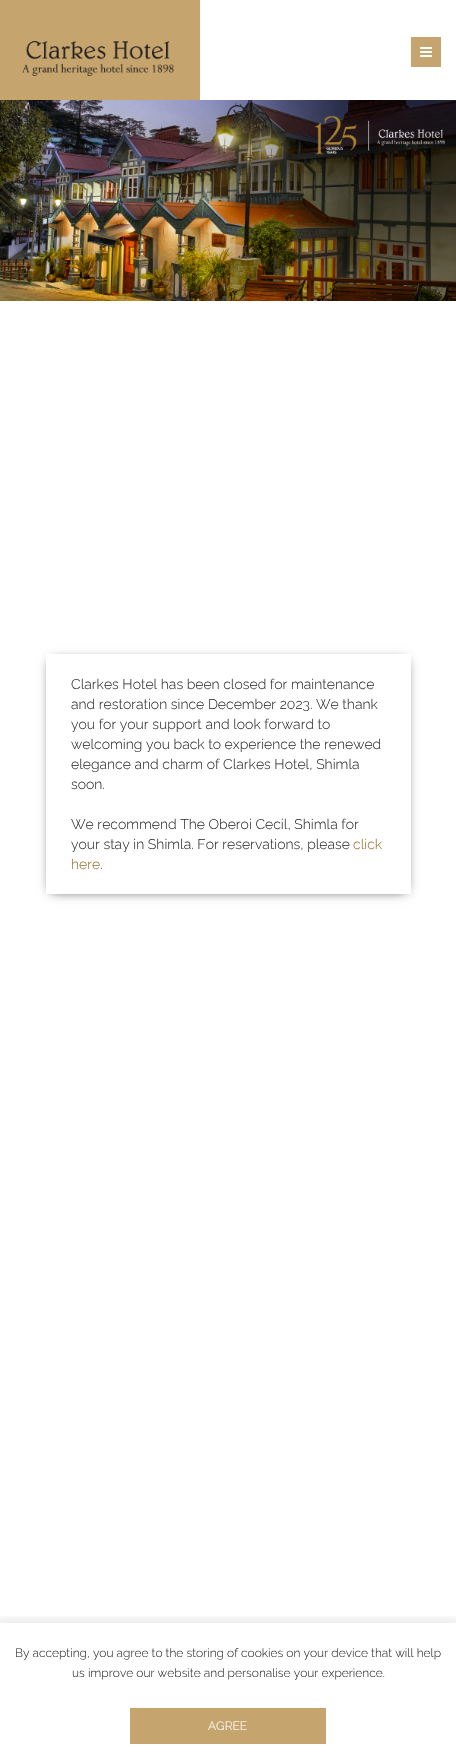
void draw(SkCanvas* c) {
SkPaint p;
p.setAntiAlias(true);
auto F=[&](const char* family, int weight, float size, bool italic = false){SkFontStyle style(weight, SkFontStyle::kNormal_Width,italic ? SkFontStyle::kItalic_Slant : SkFontStyle::kUpright_Slant);SkFont result(fontMgr->matchFamilyStyle(family, style), size);result.setSubpixel(true);return result;};
auto T=[&](const char* s, float x, float y, const SkFont& font){c->drawString(s, x, y, font, p);};
auto R=[&](float x, float y, float w, float h){c->drawRect(SkRect::MakeXYWH(x, y, w, h), p);};
auto I=[&](const char* path, float x, float y, float w, float h){auto image = SkImages::DeferredFromEncodedData(SkData::MakeFromFileName(path));c->drawImageRect(image, SkRect::MakeXYWH(x, y, w, h), SkSamplingOptions());};
c->clear(0xffffffff);
p.setColor(0xffc5a46d);
R(0,0,200,100);
I("1.png",22,41,152,35);
R(411,37,30,30);
I("2.png",420,47,12,10);
I("3.png",0,100,456,201);
p.setColor(0xff333333);
p.setMaskFilter(SkMaskFilter::MakeBlur(kNormal_SkBlurStyle, 5.5));
c->drawRect(SkRect::MakeXYWH(51,661,355,230),p);
p.setMaskFilter(nullptr);
p.setColor(0xffffffff);
R(46,654,365,240);
auto f1 = F("Raleway",300,14);
p.setColor(0xff333333);
T("Clarkes Hotel has been closed for maintenance",71,689,f1);
T("and restoration since December 2023. We thank",71,709,f1);
T("you for your support and look forward to",71,729,f1);
T("welcoming you back to experience the renewed",71,749,f1);
T("elegance and charm of Clarkes Hotel, Shimla",71,769,f1);
T("soon.",71,789,f1);
T("We recommend The Oberoi Cecil, Shimla for",71,829,f1);
T("your stay in Shimla. For reservations, please",71,849,f1);
p.setColor(0xff9a7435);
T("click",353,849,f1);
T("here",71,869,f1);
p.setColor(0xff333333);
T(".",100,869,f1);
c->save();
c->clipRect(SkRect::MakeXYWH(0,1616,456,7));
p.setColor(0x1a000000);
p.setMaskFilter(SkMaskFilter::MakeBlur(kNormal_SkBlurStyle, 5));
c->drawRect(SkRect::MakeXYWH(-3,1620,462,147),p);
p.setMaskFilter(nullptr);
c->restore();
auto f2 = F("Raleway",300,12);
p.setColor(0xff333333);
T("By accepting, you agree to the storing of cookies on your device that will help",15,1657,f2);
T("us improve our website and personalise your experience.",72,1677,f2);
p.setColor(0xffc5a46d);
R(130,1708,196,36);
p.setColor(0xffffffff);
T("AGREE",208,1730,f2);
}
